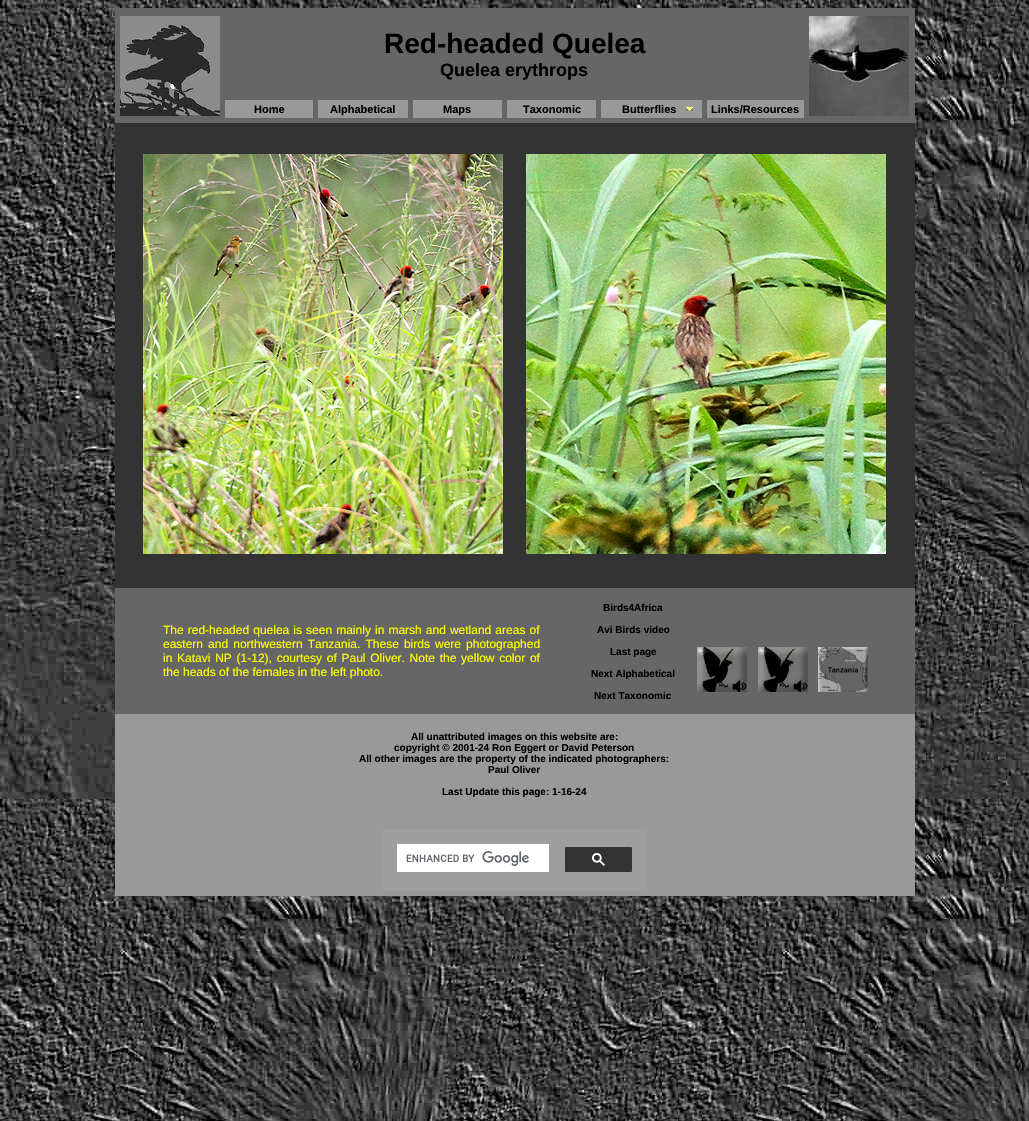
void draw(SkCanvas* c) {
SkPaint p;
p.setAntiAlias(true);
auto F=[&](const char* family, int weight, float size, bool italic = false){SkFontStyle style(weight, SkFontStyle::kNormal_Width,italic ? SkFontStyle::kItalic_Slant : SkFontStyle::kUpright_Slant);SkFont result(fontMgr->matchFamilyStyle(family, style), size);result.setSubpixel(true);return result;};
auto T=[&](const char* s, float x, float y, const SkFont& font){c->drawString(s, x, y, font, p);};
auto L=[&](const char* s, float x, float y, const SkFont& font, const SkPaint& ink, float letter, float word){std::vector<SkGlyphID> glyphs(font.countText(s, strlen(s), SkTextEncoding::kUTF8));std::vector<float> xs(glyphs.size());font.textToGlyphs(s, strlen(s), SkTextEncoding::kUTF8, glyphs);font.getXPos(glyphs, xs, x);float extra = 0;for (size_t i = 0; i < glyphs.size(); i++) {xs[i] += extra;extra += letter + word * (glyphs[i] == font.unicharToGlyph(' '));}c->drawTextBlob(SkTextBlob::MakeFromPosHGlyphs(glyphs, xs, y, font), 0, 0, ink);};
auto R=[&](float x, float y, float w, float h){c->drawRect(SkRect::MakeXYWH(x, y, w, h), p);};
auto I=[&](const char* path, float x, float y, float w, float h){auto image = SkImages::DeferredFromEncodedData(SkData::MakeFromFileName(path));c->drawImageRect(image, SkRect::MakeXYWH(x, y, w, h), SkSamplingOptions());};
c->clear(0xffffffff);
I("1.png",0,0,1029,1121);
p.setColor(0xff666666);
R(115,8,800,115);
I("2.png",120,16,100,100);
auto f1 = F("Liberation Sans",700,28);
p.setColor(0xff000000);
T("Red-headed Quelea",384,53,f1);
auto f2 = F("Liberation Sans",700,18);
T("Quelea erythrops",440,76,f2);
I("3.png",809,16,100,100);
p.setColor(0xff999999);
R(225,100,88,18);
auto f3 = F("Liberation Sans",700,11);
p.setColor(0xff000000);
T("Home",254,113,f3);
p.setColor(0xff999999);
R(318,100,90,18);
p.setColor(0xff000000);
T("Alphabetical",330,113,f3);
p.setColor(0xff999999);
R(413,100,89,18);
p.setColor(0xff000000);
T("Maps",443,113,f3);
p.setColor(0xff999999);
R(507,100,89,18);
p.setColor(0xff000000);
T("Taxonomic",523,113,f3);
p.setColor(0xff999999);
R(601,100,101,18);
I("4.png",686,107,7,4);
p.setColor(0xff000000);
T("Butterflies",622,113,f3);
p.setColor(0xff999999);
R(707,100,97,18);
p.setColor(0xff000000);
T("Links/Resources",711,113,f3);
p.setColor(0xff333333);
R(115,123,800,465);
I("5.png",143,154,360,400);
I("6.png",526,154,360,400);
p.setColor(0xff666666);
R(115,588,800,126);
auto f4 = F("Liberation Sans",400,12);
p.setColor(0xffffff00);
L("The red-headed quelea is seen mainly in marsh and wetland areas of",163,634,f4,p,0,.75);
L("eastern and northwestern Tanzania. These birds were photographed",163,648,f4,p,0,1.75);
L("in Katavi NP (1-12), courtesy of Paul Oliver. Note the yellow color of",163,662,f4,p,0,1.4);
T("the heads of the females in the left photo.",163,676,f4);
auto f5 = F("Liberation Sans",700,10);
p.setColor(0xff000000);
T("Birds4Africa",603,611,f5);
T("Avi Birds video",597,633,f5);
T("Last page",610,655,f5);
T("Next Alphabetical",591,677,f5);
T("Next Taxonomic",594,699,f5);
I("7.png",697,647,50,45);
I("7.png",758,647,50,45);
I("8.png",818,647,50,45);
p.setColor(0xff999999);
R(115,714,800,182);
p.setColor(0xff000000);
T("All unattributed images on this website are:",411,740,f5);
T("copyright © 2001-24 Ron Eggert or David Peterson",394,751,f5);
T("All other images are the property of the indicated photographers:",359,762,f5);
T("Paul Oliver",488,773,f5);
T("Last Update this page: 1-16-24",442,795,f5);
p.setColor(0xff9e9e9e);
R(382,829,265,62);
p.setColor(0xffffffff);
R(397,844,152,28);
I("9.png",406,851,123,15);
p.setColor(0xff333333);
c->drawRoundRect(SkRect::MakeXYWH(564.5,846.5,68,26),1.5,1.5,p);
p.setStroke(true);
p.setStrokeWidth(1);
p.setColor(0xff9e9e9e);
c->drawRoundRect(SkRect::MakeXYWH(564.5,846.5,68,26),1.5,1.5,p);
I("10.png",592,853,13,13);
}
